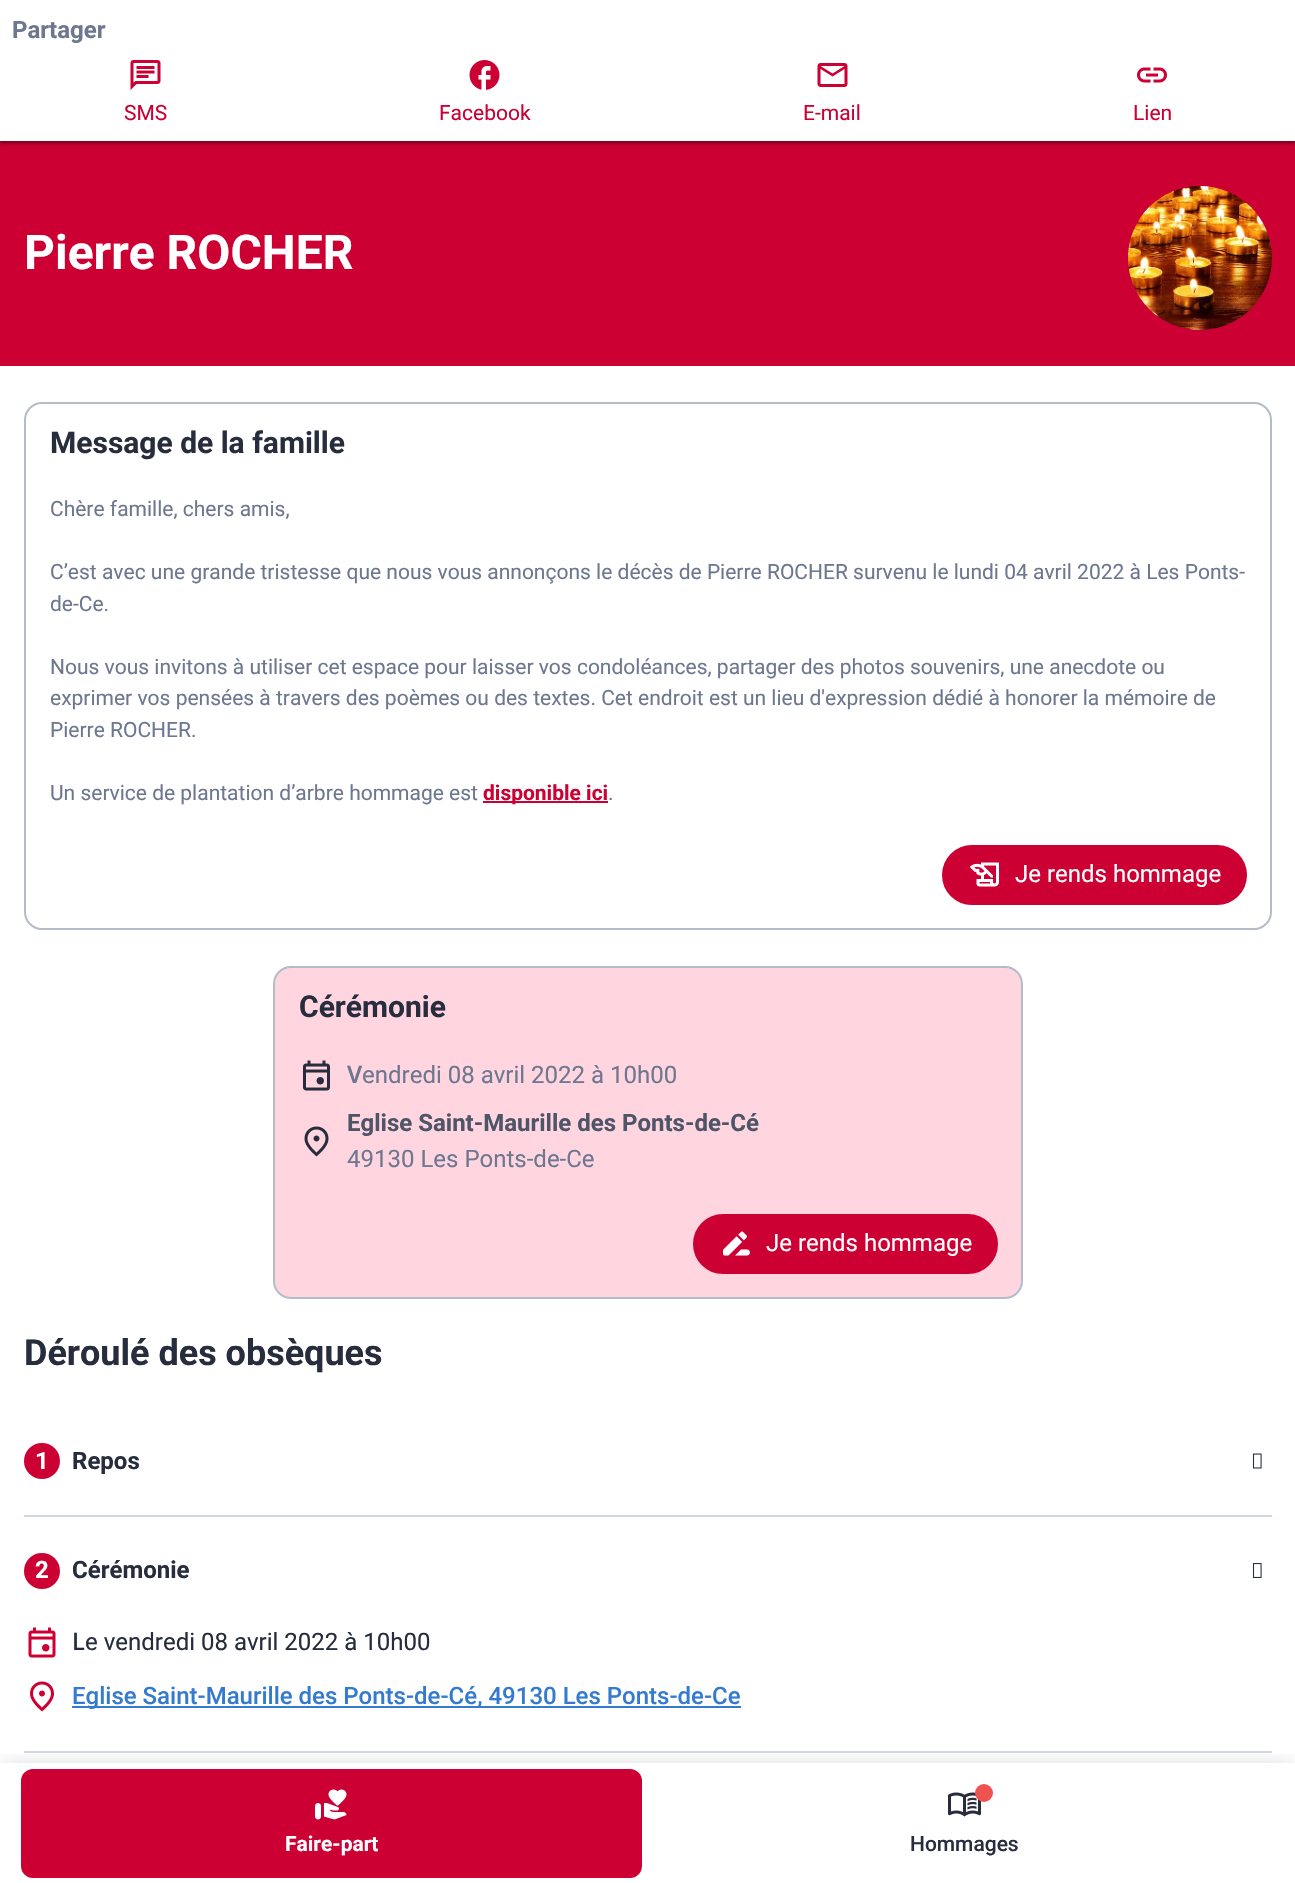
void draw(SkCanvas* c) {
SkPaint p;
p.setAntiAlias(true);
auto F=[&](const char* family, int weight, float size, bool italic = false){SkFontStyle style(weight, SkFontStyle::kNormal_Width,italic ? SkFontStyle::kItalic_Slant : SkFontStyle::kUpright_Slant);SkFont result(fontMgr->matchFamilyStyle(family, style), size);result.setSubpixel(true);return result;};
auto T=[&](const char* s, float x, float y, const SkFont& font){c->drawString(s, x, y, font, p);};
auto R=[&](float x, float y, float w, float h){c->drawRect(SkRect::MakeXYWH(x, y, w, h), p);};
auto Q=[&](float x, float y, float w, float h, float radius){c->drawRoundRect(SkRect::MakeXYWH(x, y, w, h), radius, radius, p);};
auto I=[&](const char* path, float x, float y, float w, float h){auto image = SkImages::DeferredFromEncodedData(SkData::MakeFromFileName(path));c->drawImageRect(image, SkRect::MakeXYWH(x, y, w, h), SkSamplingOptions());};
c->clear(0xffffffff);
p.setColor(0xffcc0033);
R(0,141,1295,225);
p.setColor(0x26000000);
p.setMaskFilter(SkMaskFilter::MakeBlur(kNormal_SkBlurStyle, 2));
c->drawRect(SkRect::MakeXYWH(-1,0,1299,144),p);
p.setMaskFilter(nullptr);
p.setColor(0x4d000000);
p.setMaskFilter(SkMaskFilter::MakeBlur(kNormal_SkBlurStyle, 1.5));
c->drawRect(SkRect::MakeXYWH(0,2,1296,141),p);
p.setMaskFilter(nullptr);
p.setColor(0xffffffff);
R(0,0,1295,141);
auto f1 = F("Roboto",700,24);
p.setColor(0xff6e7790);
T("Partager",12,38,f1);
I("1.png",130,60,31,30);
auto f2 = F("Roboto",400,21);
p.setColor(0xffcc0033);
T("SMS",124,120,f2);
I("2.png",469,60,31,30);
T("Facebook",439,120,f2);
I("3.png",817,63,31,24);
T("E-mail",803,120,f2);
I("4.png",1137,67,30,16);
T("Lien",1133,120,f2);
auto f3 = F("Roboto",700,48);
p.setColor(0xffffffff);
T("Pierre ROCHER",24,269,f3);
I("5.png",1128,186,144,144);
p.setStroke(true);
p.setStrokeWidth(2);
p.setColor(0xffb6bbca);
c->drawRoundRect(SkRect::MakeXYWH(25,403,1246,526),17,17,p);
auto f4 = F("Roboto",700,30);
p.setStroke(false);
p.setColor(0xff282d3e);
T("Message de la famille",50,453,f4);
p.setColor(0xff6e7790);
T("Chère famille, chers amis,",50,516,f2);
T("C’est avec une grande tristesse que nous vous annonçons le décès de Pierre ROCHER survenu le lundi 04 avril 2022 à Les Ponts-",50,579,f2);
T("de-Ce.",50,611,f2);
T("Nous vous invitons à utiliser cet espace pour laisser vos condoléances, partager des photos souvenirs, une anecdote ou",50,674,f2);
T("exprimer vos pensées à travers des poèmes ou des textes. Cet endroit est un lieu d'expression dédié à honorer la mémoire de",50,705,f2);
T("Pierre ROCHER.",50,737,f2);
T("Un service de plantation d’arbre hommage est",50,800,f2);
p.setColor(0xffcc0033);
R(483,801,125,2);
auto f5 = F("Roboto",700,21);
T("disponible ici",483,800,f5);
p.setColor(0xff6e7790);
T(".",608,800,f2);
p.setColor(0xffcc0033);
c->drawRoundRect(SkRect::MakeXYWH(943,846,303,58),29,29,p);
p.setStroke(true);
c->drawRoundRect(SkRect::MakeXYWH(943,846,303,58),29,29,p);
I("6.png",969,862,30,25);
auto f6 = F("Roboto",400,24);
p.setStroke(false);
p.setColor(0xffffffff);
T("Je rends hommage",1015,882,f6);
p.setColor(0xffffd6e0);
c->drawRoundRect(SkRect::MakeXYWH(274,967,748,331),17,17,p);
p.setStroke(true);
p.setColor(0xffb6bbca);
c->drawRoundRect(SkRect::MakeXYWH(274,967,748,331),17,17,p);
p.setStroke(false);
p.setColor(0xff282d3e);
T("Cérémonie",299,1017,f4);
I("7.png",303,1060,27,31);
auto f7 = F("Noto Sans",600,24);
p.setColor(0xff6e7790);
T("V",347,1083,f7);
T("endredi 08 avril 2022 à 10h00",362,1083,f6);
I("8.png",304,1126,25,31);
p.setColor(0xff4e5568);
T("Eglise Saint-Maurille des Ponts-de-Cé",347,1131,f1);
p.setColor(0xff6e7790);
T("49130 Les Ponts-de-Ce",347,1167,f6);
p.setColor(0xffcc0033);
c->drawRoundRect(SkRect::MakeXYWH(694,1215,303,58),29,29,p);
p.setStroke(true);
c->drawRoundRect(SkRect::MakeXYWH(694,1215,303,58),29,29,p);
I("9.png",723,1231,27,25);
p.setStroke(false);
p.setColor(0xffffffff);
T("Je rends hommage",766,1251,f6);
auto f8 = F("Roboto",700,36);
p.setColor(0xff282d3e);
T("Déroulé des obsèques",24,1365,f8);
p.setColor(0xffcc0033);
c->drawCircle(42,1461,18,p);
p.setColor(0xffffffff);
T("1",35,1469,f1);
p.setColor(0xff282d3e);
T("Repos",72,1469,f1);
I("10.png",1252,1453,10,16);
p.setColor(0xffd2d6e1);
R(24,1515,1248,2);
p.setColor(0xffcc0033);
c->drawCircle(42,1571,18,p);
p.setColor(0xffffffff);
T("2",35,1578,f1);
p.setColor(0xff282d3e);
T("Cérémonie",72,1578,f1);
I("11.png",1252,1563,10,15);
I("12.png",28,1627,28,31);
auto f9 = F("Noto Sans",500,24);
T("L",72,1650,f9);
T("e vendredi 08 avril 2022 à 10h00",85,1650,f6);
I("13.png",30,1681,24,31);
p.setColor(0xff347bd0);
R(72,1706,669,2);
auto f10 = F("Roboto",500,24);
T("Eglise Saint-Maurille des Ponts-de-Cé, 49130 Les Ponts-de-Ce",72,1704,f10);
p.setColor(0xffd2d6e1);
R(24,1751,1248,2);
c->save();
c->clipRect(SkRect::MakeXYWH(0,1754,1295,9));
p.setColor(0x33000000);
p.setMaskFilter(SkMaskFilter::MakeBlur(kNormal_SkBlurStyle, 12));
c->drawRect(SkRect::MakeXYWH(0,1769,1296,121),p);
p.setMaskFilter(nullptr);
c->restore();
p.setColor(0xffcc0033);
Q(21,1769,621,109,12);
I("14.png",314,1789,33,31);
p.setColor(0xffffffff);
T("Faire-part",285,1851,f5);
I("15.png",948,1792,33,25);
p.setColor(0xffef5350);
c->drawCircle(984,1793,9,p);
auto f11 = F("Roboto",500,21);
p.setColor(0xff282d3e);
T("Hommages",910,1851,f11);
}
